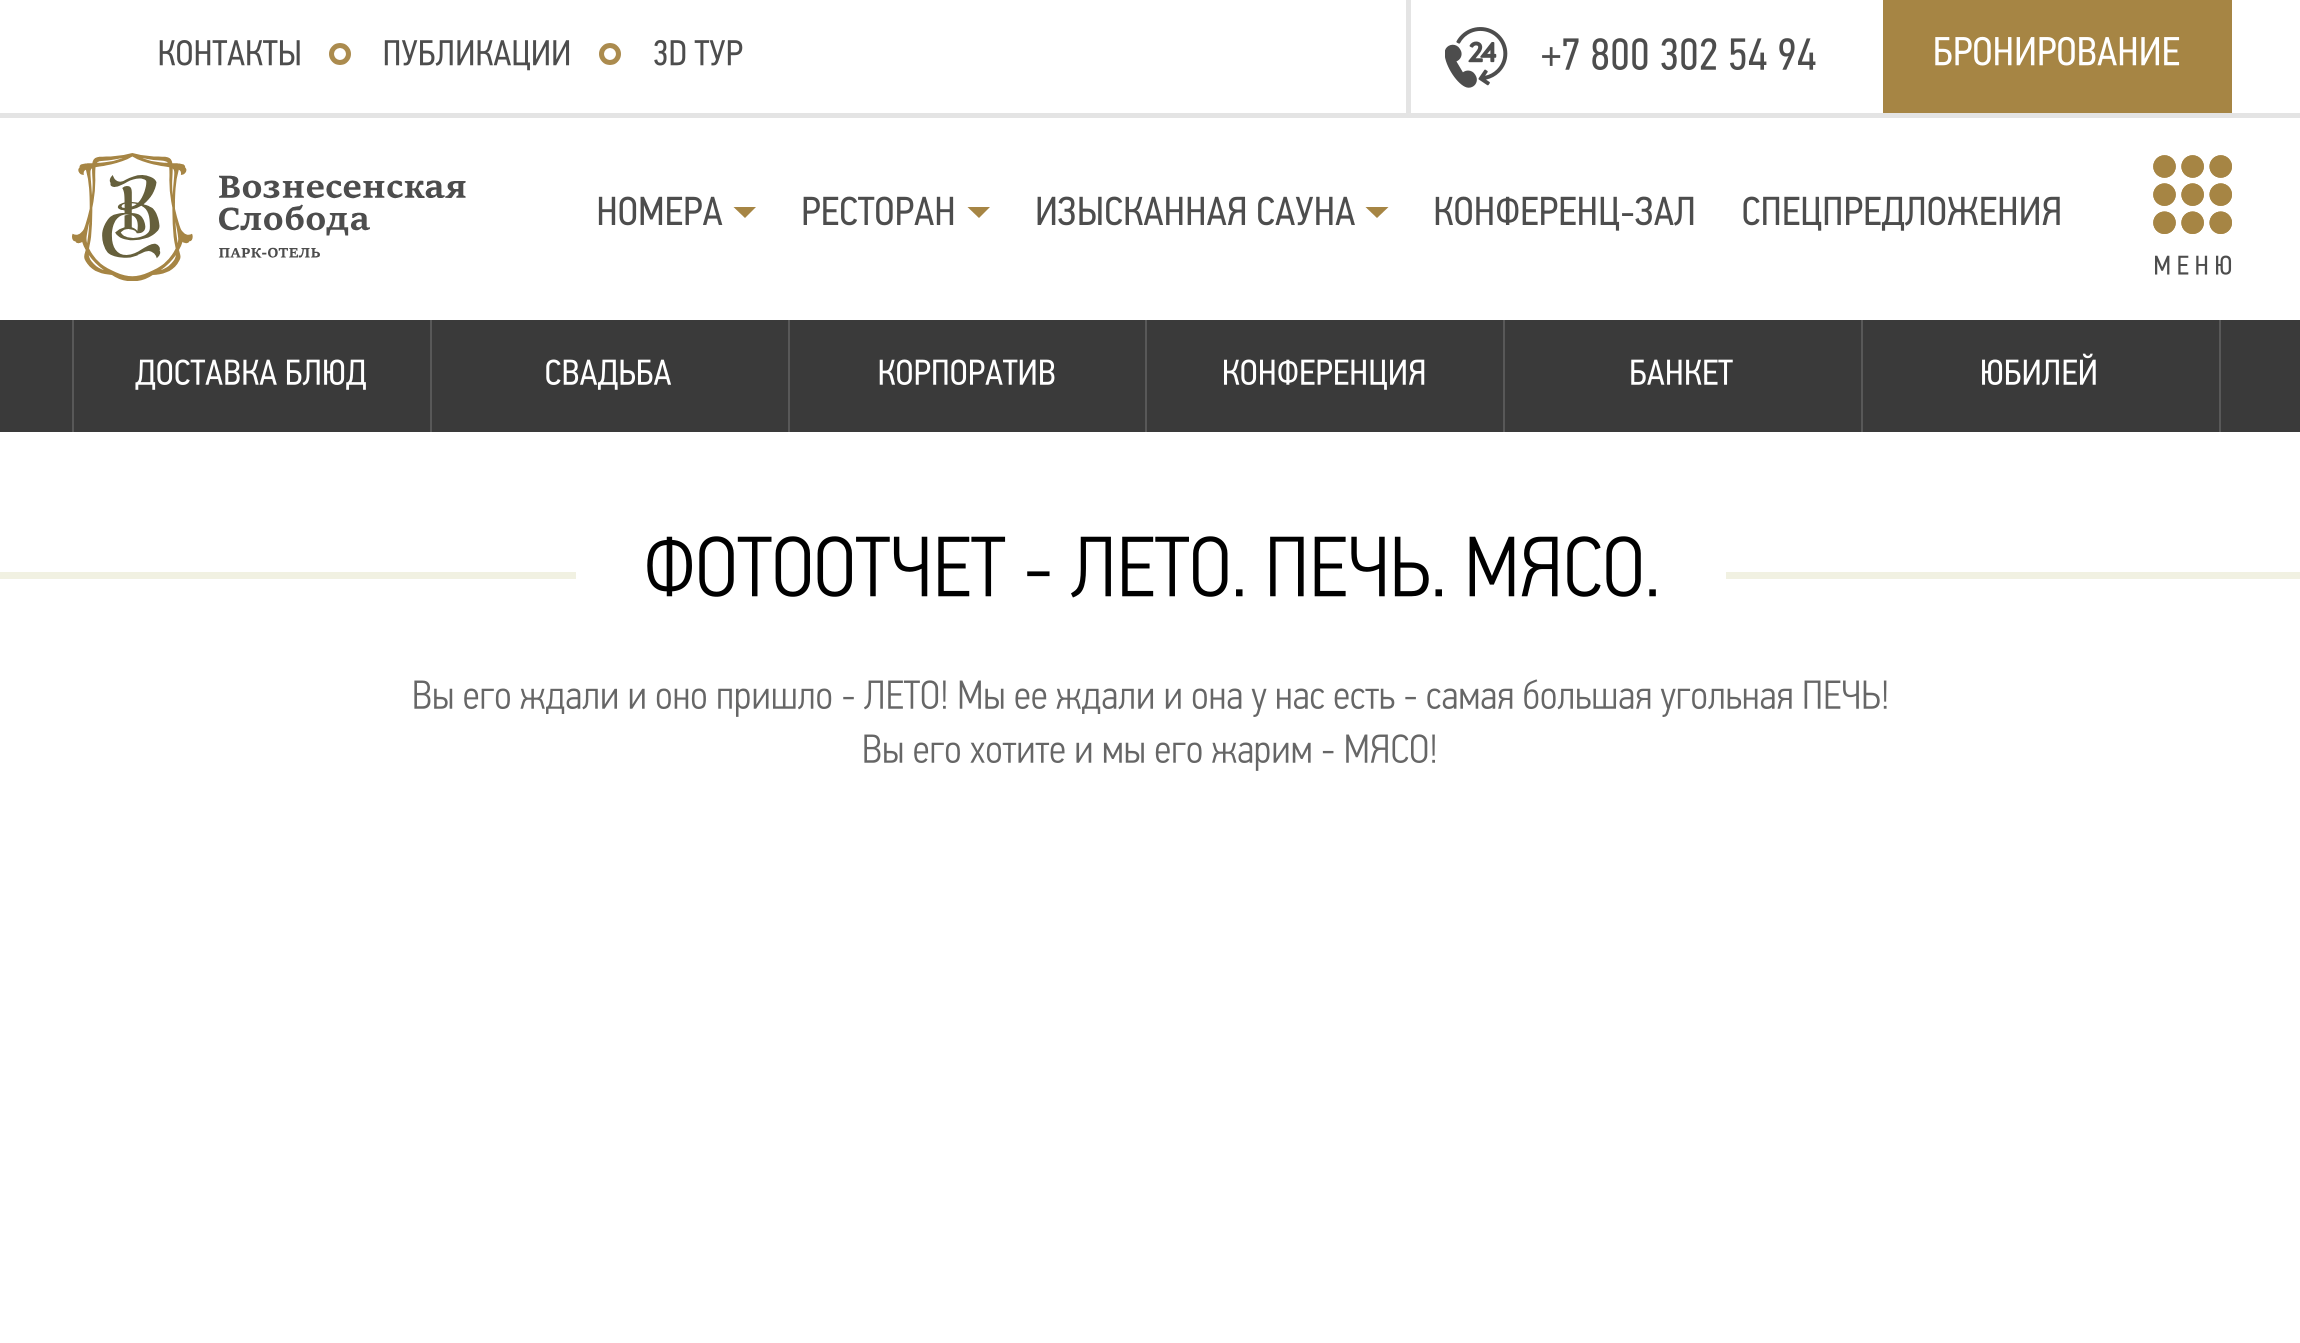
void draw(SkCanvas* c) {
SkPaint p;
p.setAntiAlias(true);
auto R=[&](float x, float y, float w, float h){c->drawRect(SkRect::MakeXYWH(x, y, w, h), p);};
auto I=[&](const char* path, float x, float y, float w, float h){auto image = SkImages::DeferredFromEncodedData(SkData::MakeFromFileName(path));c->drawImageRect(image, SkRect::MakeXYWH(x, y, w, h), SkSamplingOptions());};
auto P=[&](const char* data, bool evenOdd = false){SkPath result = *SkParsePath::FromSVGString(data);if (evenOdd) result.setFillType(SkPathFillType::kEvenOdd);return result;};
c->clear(0xffffffff);
p.setColor(0xffe4e4e4);
R(0,113,2300,5);
I("1.png",159,40,141,26);
p.setStroke(true);
p.setStrokeWidth(5);
p.setColor(0xffab8b4e);
c->drawCircle(340,54,8.5,p);
I("2.png",384,40,186,31);
c->drawCircle(610,54,8.5,p);
I("3.png",654,40,89,26);
I("4.png",1445,27,63,61);
p.setStroke(false);
p.setColor(0xffe4e4e4);
R(1406,0,5,113);
I("5.png",1542,38,274,32);
p.setColor(0xffa68544);
R(1883,0,349,113);
I("6.png",1935,36,245,30);
I("7.png",72,153,394,128);
I("8.png",598,196,125,30);
c->drawPath(P("M733.5 207h22.5l-11 11z",true),p);
I("9.png",803,196,151,30);
c->drawPath(P("M967.5 207h22.5l-11 11z",true),p);
I("10.png",1037,196,318,30);
c->drawPath(P("M1365.5 207h23l-11.5 11z",true),p);
I("11.png",1435,196,259,35);
I("12.png",1743,196,317,35);
I("13.png",2153,155,79,79);
I("14.png",2153,155,79,79);
I("15.png",2155,255,77,20);
p.setColor(0xff3a3a3a);
R(0,320,2300,112);
p.setColor(0xff585858);
R(430,320,2,112);
R(72,320,2,112);
I("16.png",135,359,231,31);
R(788,320,2,112);
I("17.png",546,359,125,31);
R(1145,320,2,112);
I("18.png",879,359,176,26);
R(1503,320,2,112);
I("19.png",1224,359,201,31);
R(1861,320,2,112);
I("20.png",1631,359,102,26);
R(2219,320,2,112);
I("21.png",1982,353,114,33);
p.setColor(0xfff1f1e2);
R(0,572,576,7);
I("22.png",647,536,1009,62);
R(1726,572,574,7);
I("23.png",414,679,1473,38);
I("24.png",864,734,571,37);
}
